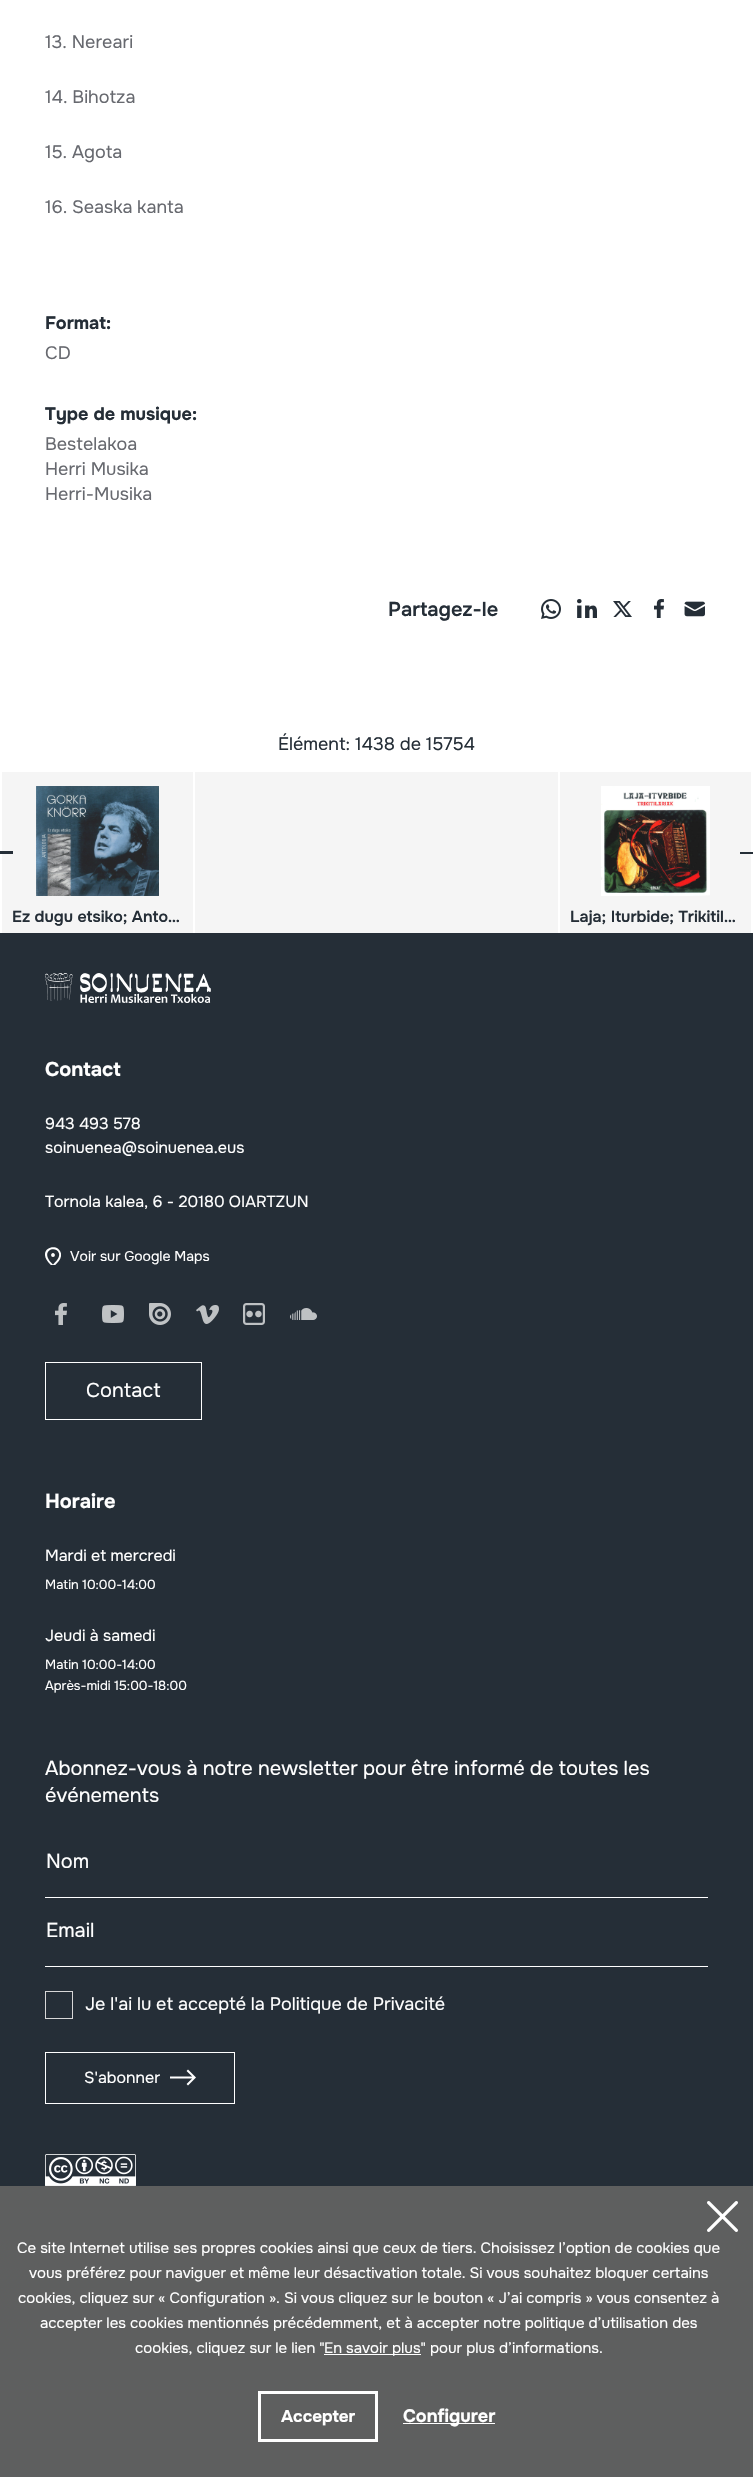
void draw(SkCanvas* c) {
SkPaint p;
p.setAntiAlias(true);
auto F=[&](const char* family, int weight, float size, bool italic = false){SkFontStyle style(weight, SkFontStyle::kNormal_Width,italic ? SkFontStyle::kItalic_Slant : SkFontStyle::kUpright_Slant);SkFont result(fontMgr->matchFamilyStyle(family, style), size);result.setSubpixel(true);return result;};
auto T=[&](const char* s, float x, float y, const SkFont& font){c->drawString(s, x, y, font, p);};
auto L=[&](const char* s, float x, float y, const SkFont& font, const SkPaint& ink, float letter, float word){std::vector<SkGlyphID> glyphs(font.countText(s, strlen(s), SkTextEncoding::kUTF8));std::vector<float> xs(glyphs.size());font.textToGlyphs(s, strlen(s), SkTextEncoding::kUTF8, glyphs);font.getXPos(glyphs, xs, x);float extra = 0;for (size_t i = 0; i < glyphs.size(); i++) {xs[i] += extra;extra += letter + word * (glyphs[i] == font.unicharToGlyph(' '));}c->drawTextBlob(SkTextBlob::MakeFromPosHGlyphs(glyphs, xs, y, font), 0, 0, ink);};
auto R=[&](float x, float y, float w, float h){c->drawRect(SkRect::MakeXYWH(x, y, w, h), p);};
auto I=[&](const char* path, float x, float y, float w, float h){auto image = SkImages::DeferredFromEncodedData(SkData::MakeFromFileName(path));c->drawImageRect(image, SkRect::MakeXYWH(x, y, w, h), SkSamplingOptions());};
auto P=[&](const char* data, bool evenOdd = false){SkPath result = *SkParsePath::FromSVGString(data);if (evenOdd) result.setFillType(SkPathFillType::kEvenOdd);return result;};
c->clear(0xffffffff);
auto f1 = F("Onest",400,18);
p.setColor(0xff67696f);
T("13. Nereari",45,48,f1);
T("14. Bihotza",45,103,f1);
T("15. Agota",45,158,f1);
L("16. Seaska kanta",45,213,f1,p,0,-.25);
auto f2 = F("Onest",700,18);
p.setColor(0xff252e37);
T("Format:",45,329,f2);
p.setColor(0xff67696f);
T("CD",45,359,f1);
p.setColor(0xff252e37);
T("Type de musique:",45,420,f2);
p.setColor(0xff67696f);
T("Bestelakoa",45,450,f1);
T("Herri Musika",45,475,f1);
T("Herri-Musika",45,500,f1);
auto f3 = F("Onest",600,20);
p.setColor(0xff252e37);
T("Partagez-le",388,616,f3);
I("1.png",541,599,20,20);
I("2.png",577,599,20,19);
I("3.png",613,601,19,16);
I("4.png",654,599,10,19);
I("5.png",684,601,21,16);
T("Élément: 1438 de 15754",278,750,f1);
p.setColor(0xfff5f5f5);
R(2,772,749,161);
p.setColor(0xff252e37);
R(0,851,13,3);
p.setColor(0xffffffff);
R(193,772,2,161);
I("6.png",36,786,123,110);
auto f4 = F("Onest",600,16);
p.setColor(0xff252e37);
T("Ez dugu etsiko; Anto…",12,922,f4);
R(740,852,13,2);
p.setColor(0xffffffff);
R(558,772,2,161);
I("7.png",601,786,109,110);
p.setColor(0xff252e37);
T("Laja; Iturbide; Trikitil…",570,922,f4);
R(0,933,753,1253);
I("8.png",45,973,166,30);
auto f5 = F("Onest",700,20);
p.setColor(0xffffffff);
T("Contact",45,1076,f5);
auto f6 = F("Onest",400,16);
T("943 493 578",45,1129,f6);
T("soinuenea@soinuenea.eus",45,1153,f6);
T("Tornola kalea, 6 - 20180 OIARTZUN",45,1207,f6);
auto f7 = F("Onest",400,14);
T("Voir sur Google Maps",70,1261,f7);
c->save();
c->clipRect(SkRect::MakeXYWH(45,1247,16,18));
c->drawPath(P("M53 1257c2.5 0 2.5-4 0-4c-2.5 0-2.5 4 0 4zm0 7.5c3-3 7-7 6-11c-2.5-9-21-3-6 11zm0 2.5c-21-18 5.5-26.5 8-13.5c1 5.5-4 10-8 13.5z"),p);
c->restore();
I("9.png",55,1303,12,22);
I("10.png",102,1305,22,18);
I("11.png",149,1303,22,22);
I("12.png",196,1305,23,19);
I("13.png",243,1303,22,22);
I("14.png",290,1308,27,12);
p.setStroke(true);
p.setStrokeWidth(1);
c->drawRect(SkRect::MakeXYWH(45.5,1362.5,156,57),p);
auto f8 = F("Onest",400,20);
p.setStroke(false);
T("Contact",86,1397,f8);
T("Horaire",45,1508,f5);
T("Mardi et mercredi",45,1561,f6);
auto f9 = F("Onest",400,13);
T("Matin 10:00-14:00",45,1589,f9);
T("Jeudi à samedi",45,1641,f6);
T("Matin 10:00-14:00",45,1669,f9);
T("Après-midi 15:00-18:00",45,1690,f9);
L("Abonnez-vous à notre newsletter pour être informé de toutes les",45,1775,f8,p,0,-.25);
T("événements",45,1802,f8);
T("Nom",46,1868,f8);
R(45,1897,663,1);
T("Email",46,1937,f8);
R(45,1966,663,1);
p.setStroke(true);
p.setColor(0xffd7d7d7);
c->drawRect(SkRect::MakeXYWH(45.5,1991.5,27,27),p);
p.setStroke(false);
p.setColor(0xffffffff);
T("Je l'ai lu et accepté la Politique de Privacité",85,2010,f1);
p.setStroke(true);
c->drawRect(SkRect::MakeXYWH(45.5,2052.5,189,51),p);
p.setStroke(false);
T("S'abonner",84,2083,f6);
I("15.png",170,2069,26,17);
I("16.png",45,2154,91,32);
p.setColor(0xff5e5f5f);
R(0,2186,753,291);
I("17.png",707,2201,31,31);
auto f10 = F("Onest",400,15);
p.setColor(0xffffffff);
T("Ce site Internet utilise ses propres cookies ainsi que ceux de tiers. Choisissez l’option de cookies que",17,2253,f10);
L("vous préférez pour naviguer et même leur désactivation totale. Si vous souhaitez bloquer certains",29,2278,f10,p,0,-.1);
T("cookies, cliquez sur « Configuration ». Si vous cliquez sur le bouton « J’ai compris » vous consentez à",18,2303,f10);
T("accepter les cookies mentionnés précédemment, et à accepter notre politique d’utilisation des",40,2328,f10);
T("cookies, cliquez sur le lien \"",135,2353,f10);
R(324,2354,97,1);
T("En savoir plus\" pour plus d’informations.",324,2353,f10);
p.setStroke(true);
p.setStrokeWidth(3);
c->drawRect(SkRect::MakeXYWH(259.5,2392.5,117,48),p);
auto f11 = F("Onest",700,17);
p.setStroke(false);
T("Accepter",281,2422,f11);
R(403,2423,92,1);
T("Configurer",403,2422,f2);
}
